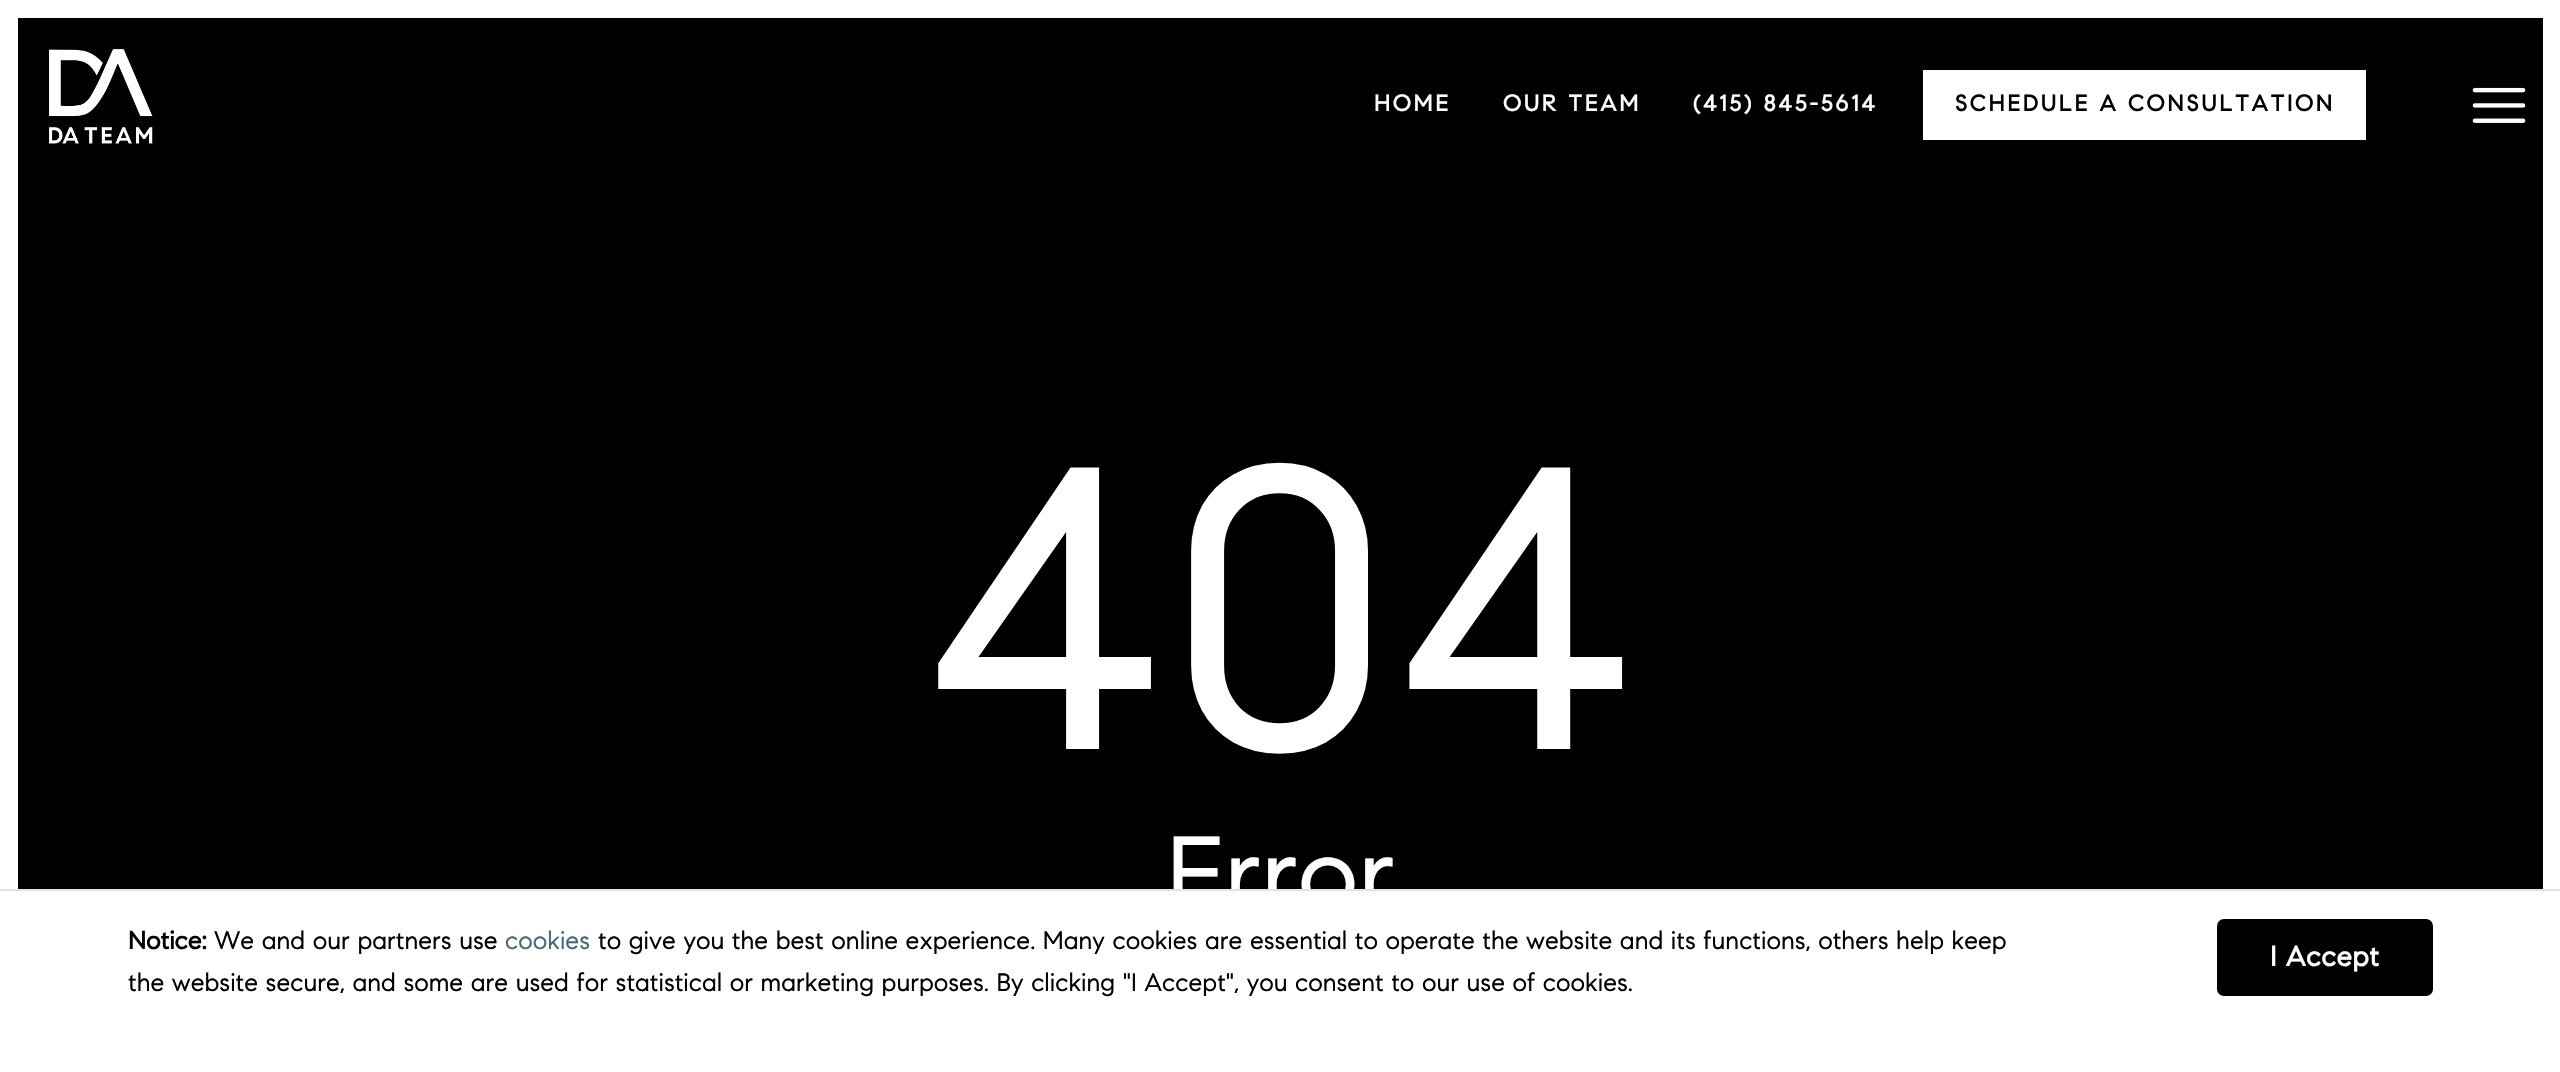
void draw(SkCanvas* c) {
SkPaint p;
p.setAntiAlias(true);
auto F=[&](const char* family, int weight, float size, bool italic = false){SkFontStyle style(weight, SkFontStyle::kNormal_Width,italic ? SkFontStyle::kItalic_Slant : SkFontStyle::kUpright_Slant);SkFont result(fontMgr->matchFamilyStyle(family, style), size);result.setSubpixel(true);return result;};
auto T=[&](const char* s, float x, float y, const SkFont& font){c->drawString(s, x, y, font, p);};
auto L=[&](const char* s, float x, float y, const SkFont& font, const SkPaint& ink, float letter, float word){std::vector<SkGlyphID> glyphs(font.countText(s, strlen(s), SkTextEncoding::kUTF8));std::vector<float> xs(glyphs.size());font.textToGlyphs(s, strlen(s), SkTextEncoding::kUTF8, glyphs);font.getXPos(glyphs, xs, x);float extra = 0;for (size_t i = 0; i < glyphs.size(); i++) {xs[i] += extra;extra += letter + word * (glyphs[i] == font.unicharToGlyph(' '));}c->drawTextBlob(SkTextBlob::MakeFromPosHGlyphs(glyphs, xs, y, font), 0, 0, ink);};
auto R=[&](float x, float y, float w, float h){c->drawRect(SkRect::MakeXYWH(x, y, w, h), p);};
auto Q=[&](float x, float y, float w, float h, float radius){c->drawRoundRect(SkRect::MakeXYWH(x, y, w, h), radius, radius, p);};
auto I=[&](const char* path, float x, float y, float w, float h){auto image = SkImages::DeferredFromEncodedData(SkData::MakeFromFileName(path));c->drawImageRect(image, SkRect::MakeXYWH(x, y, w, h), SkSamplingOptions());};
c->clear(0xffffffff);
p.setColor(0xff000000);
R(18,18,2525,871);
I("1.png",49,49,104,95);
auto f1 = F("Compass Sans",700,22.75);
p.setColor(0xffffffff);
L("HOME",1374,111,f1,p,2.8,0);
L("OUR TEAM",1503,111,f1,p,2.8,0);
L("(415) 845-5614",1693,111,f1,p,2.8,0);
R(1923,70,443,70);
p.setColor(0xff000000);
L("SCHEDULE A CONSULTATION",1955,111,f1,p,2.8,0);
I("2.png",2472,87,54,36);
auto f2 = F("Compass Sans",400,402);
p.setColor(0xffffffff);
T("404",925,749,f2);
auto f3 = F("Compass Sans",400,105);
T("Error",1166,910,f3);
p.setColor(0xffe1e0e3);
R(0,889,2560,2);
auto f4 = F("Compass Sans",700,25.2);
p.setColor(0xff000000);
T("Notice:",128,949,f4);
auto f5 = F("Compass Sans",400,25.2);
T("We and our partners use",214,949,f5);
p.setColor(0xff466d77);
T("cookies",505,949,f5);
p.setColor(0xff000000);
T("to give you the best online experience. Many cookies are essential to operate the website and its functions, others help keep",598,949,f5);
T("the website secure, and some are used for statistical or marketing purposes. By clicking \"I Accept\", you consent to our use of cookies.",128,991,f5);
Q(2217,919,216,77,7);
auto f6 = F("Compass Sans",700,28);
p.setColor(0xffffffff);
L("I Accept",2270,966,f6,p,.5,0);
}
